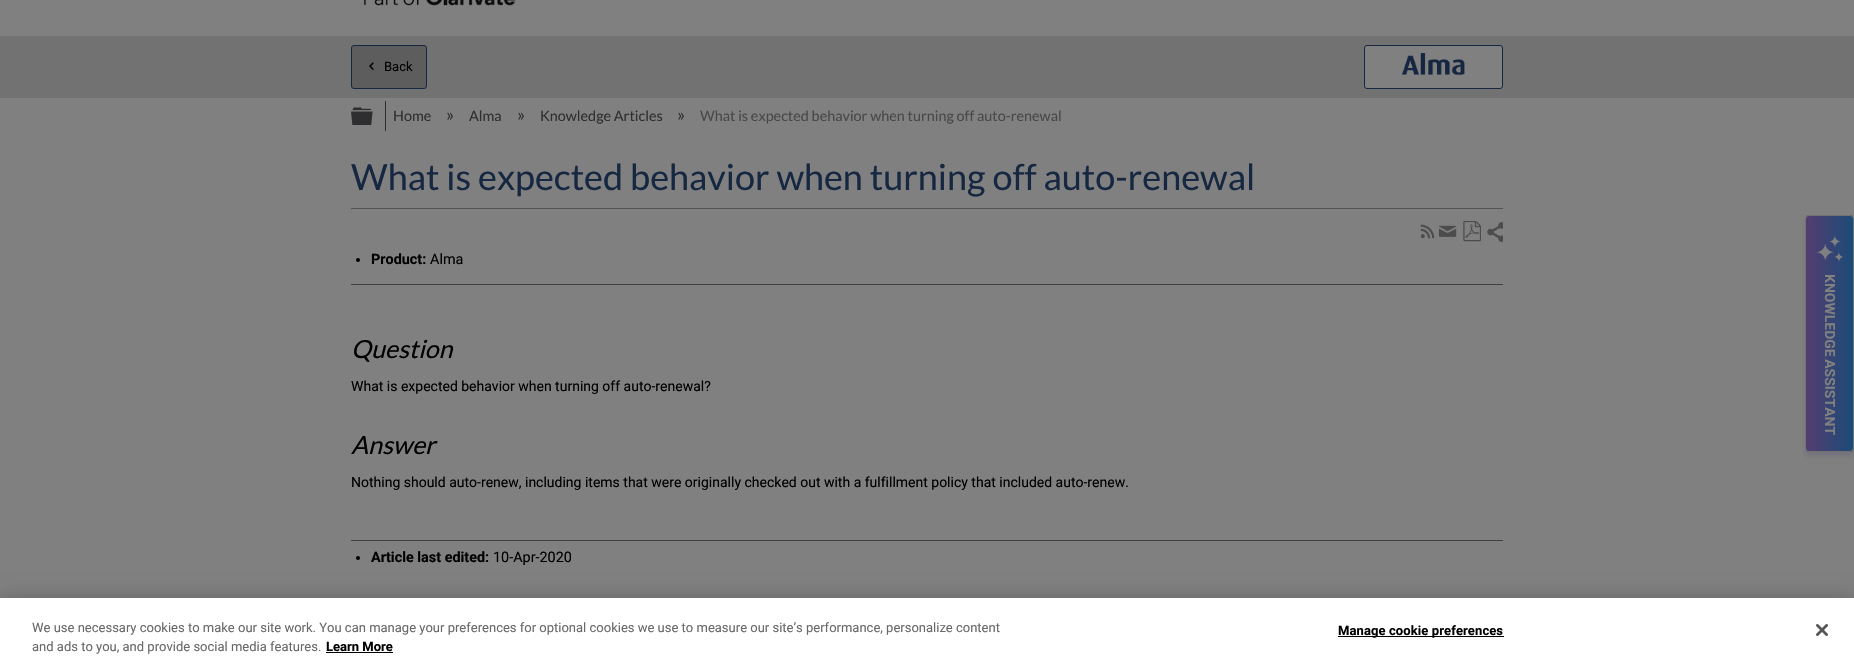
void draw(SkCanvas* c) {
SkPaint p;
p.setAntiAlias(true);
auto F=[&](const char* family, int weight, float size, bool italic = false){SkFontStyle style(weight, SkFontStyle::kNormal_Width,italic ? SkFontStyle::kItalic_Slant : SkFontStyle::kUpright_Slant);SkFont result(fontMgr->matchFamilyStyle(family, style), size);result.setSubpixel(true);return result;};
auto T=[&](const char* s, float x, float y, const SkFont& font){c->drawString(s, x, y, font, p);};
auto L=[&](const char* s, float x, float y, const SkFont& font, const SkPaint& ink, float letter, float word){std::vector<SkGlyphID> glyphs(font.countText(s, strlen(s), SkTextEncoding::kUTF8));std::vector<float> xs(glyphs.size());font.textToGlyphs(s, strlen(s), SkTextEncoding::kUTF8, glyphs);font.getXPos(glyphs, xs, x);float extra = 0;for (size_t i = 0; i < glyphs.size(); i++) {xs[i] += extra;extra += letter + word * (glyphs[i] == font.unicharToGlyph(' '));}c->drawTextBlob(SkTextBlob::MakeFromPosHGlyphs(glyphs, xs, y, font), 0, 0, ink);};
auto R=[&](float x, float y, float w, float h){c->drawRect(SkRect::MakeXYWH(x, y, w, h), p);};
auto I=[&](const char* path, float x, float y, float w, float h){auto image = SkImages::DeferredFromEncodedData(SkData::MakeFromFileName(path));c->drawImageRect(image, SkRect::MakeXYWH(x, y, w, h), SkSamplingOptions());};
auto P=[&](const char* data, bool evenOdd = false){SkPath result = *SkParsePath::FromSVGString(data);if (evenOdd) result.setFillType(SkPathFillType::kEvenOdd);return result;};
c->clear(0xff808080);
p.setColor(0xff727272);
R(0,36,1854,62);
p.setColor(0xff5d5d5d);
c->drawRoundRect(SkRect::MakeXYWH(351.5,45.5,75,43),2.5,2.5,p);
p.setStroke(true);
p.setStrokeWidth(1);
p.setColor(0xff162741);
c->drawRoundRect(SkRect::MakeXYWH(351.5,45.5,75,43),2.5,2.5,p);
I("1.png",369,62,5,8);
auto f1 = F("Roboto",400,13);
p.setStroke(false);
p.setColor(0xff000000);
T("Back",384,71,f1);
p.setColor(0xff808080);
c->drawRoundRect(SkRect::MakeXYWH(1364.5,45.5,138,43),2.5,2.5,p);
p.setStroke(true);
p.setColor(0xff162741);
c->drawRoundRect(SkRect::MakeXYWH(1364.5,45.5,138,43),2.5,2.5,p);
I("2.png",1401,53,64,23);
I("3.png",351,107,22,18);
p.setStroke(false);
p.setColor(0xff2f2e31);
R(385,101,1,30);
auto f2 = F("Lato",400,14.4);
T("Home",393,121,f2);
auto f3 = F("Lato",400,18);
T("»",446,121,f3);
T("Alma",469,121,f2);
T("»",517,121,f3);
T("Knowledge Articles",540,121,f2);
T("»",677,121,f3);
p.setColor(0xff48484a);
T("What is expected behavior when turning off auto-renewal",700,121,f2);
I("4.png",363,0,153,6);
p.setColor(0x33423c73);
p.setMaskFilter(SkMaskFilter::MakeBlur(kNormal_SkBlurStyle, 2));
c->drawRoundRect(SkRect::MakeXYWH(1805,219,49,237),4,4,p);
p.setMaskFilter(nullptr);
c->save();
c->clipPath(P("M1809 215h41c2 0 4 2 4 4v229c0 2-2 4-4 4h-41c-2 0-4-2-4-4v-229c0-2 2-4 4-4z"),true);
{
const SkColor colors[] = {0xff543d70,0xff1b4b78};
const float stops[] = {0,1};
const SkPoint ends[] = {{1806,334}, {1853,334}};
p.setShader(SkGradientShader::MakeLinear(ends, colors, stops, 2, SkTileMode::kClamp));
p.setAlpha(255);
}
R(1806,215,47,237);
c->restore();
p.setStroke(true);
p.setShader(nullptr);
p.setColor(0xff727272);
c->drawRoundRect(SkRect::MakeXYWH(1805.5,215.5,48,236),3.5,3.5,p);
I("5.png",1816,235,28,27);
auto f4 = F("Roboto",700,14);
p.setStroke(false);
p.setColor(0xff808080);
c->save();
c->rotate(90,1825,274);
L("KNOWLEDGE ASSISTANT",1825,274,f4,p,0,-1);
c->restore();
p.setColor(0xff545454);
R(351,208,1152,1);
auto f5 = F("Lato",400,36);
p.setColor(0xff162741);
T("What is expected behavior when turning off auto-renewal",351,190,f5);
I("6.png",1420,224,15,15);
I("7.png",1438,225,19,12);
I("8.png",1463,221,18,21);
I("9.png",1487,222,16,20);
p.setColor(0xff000000);
c->drawCircle(358,260,2,p);
auto f6 = F("Roboto",700,14.4);
T("Product:",371,264,f6);
auto f7 = F("Roboto",400,14.4);
T("Alma",430,264,f7);
p.setColor(0xff404040);
R(351,284,1152,1);
auto f8 = F("Lato",400,25,true);
p.setColor(0xff000000);
T("Question",351,358,f8);
auto f9 = F("Roboto",400,14);
T("What is expected behavior when turning off auto-renewal?",351,391,f9);
T("Answer",351,454,f8);
T("Nothing should auto-renew, including items that were originally checked out with a fulfillment policy that included auto-renew.",351,487,f9);
p.setColor(0xff404040);
R(351,540,1152,1);
p.setColor(0xff000000);
c->drawCircle(358,558,2,p);
T("Article last edited:",371,562,f6);
T("10-Apr-2020",493,562,f7);
p.setColor(0x33000000);
p.setMaskFilter(SkMaskFilter::MakeBlur(kNormal_SkBlurStyle, 9));
c->drawRect(SkRect::MakeXYWH(0,598,1854,69),p);
p.setMaskFilter(nullptr);
p.setColor(0xffffffff);
R(0,598,1854,69);
p.setColor(0xff696969);
T("We use necessary cookies to make our site work. You can manage your preferences for optional cookies we use to measure our site’s performance, personalize content",32,632,f1);
T("and ads to you, and provide social media features.",32,651,f1);
auto f10 = F("Roboto",700,13);
p.setColor(0xff000000);
T("Learn More",326,651,f10);
R(326,652,67,1);
R(1338,636,166,1);
L("Manage cookie preferences",1338,635,f10,p,.1,0);
I("10.png",1816,624,12,12);
}
